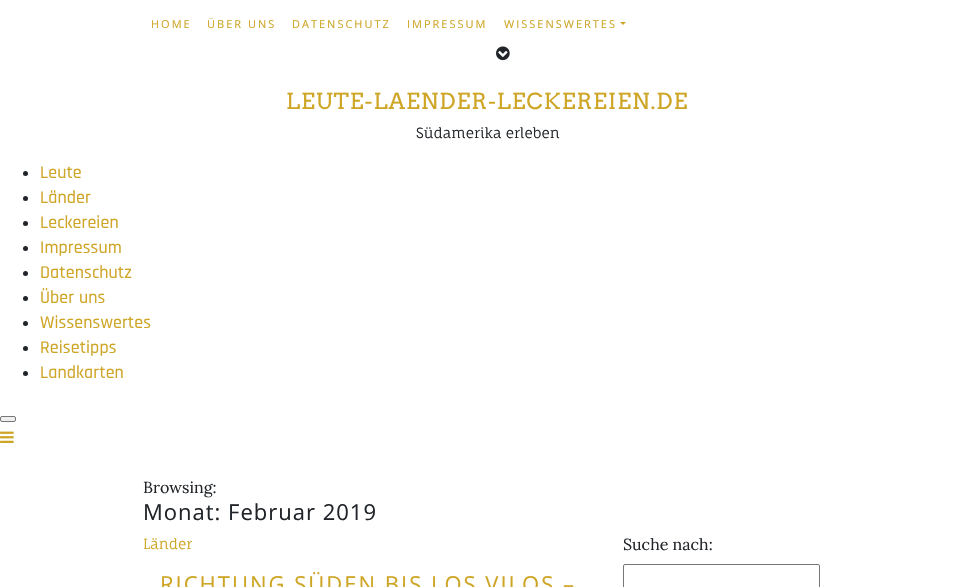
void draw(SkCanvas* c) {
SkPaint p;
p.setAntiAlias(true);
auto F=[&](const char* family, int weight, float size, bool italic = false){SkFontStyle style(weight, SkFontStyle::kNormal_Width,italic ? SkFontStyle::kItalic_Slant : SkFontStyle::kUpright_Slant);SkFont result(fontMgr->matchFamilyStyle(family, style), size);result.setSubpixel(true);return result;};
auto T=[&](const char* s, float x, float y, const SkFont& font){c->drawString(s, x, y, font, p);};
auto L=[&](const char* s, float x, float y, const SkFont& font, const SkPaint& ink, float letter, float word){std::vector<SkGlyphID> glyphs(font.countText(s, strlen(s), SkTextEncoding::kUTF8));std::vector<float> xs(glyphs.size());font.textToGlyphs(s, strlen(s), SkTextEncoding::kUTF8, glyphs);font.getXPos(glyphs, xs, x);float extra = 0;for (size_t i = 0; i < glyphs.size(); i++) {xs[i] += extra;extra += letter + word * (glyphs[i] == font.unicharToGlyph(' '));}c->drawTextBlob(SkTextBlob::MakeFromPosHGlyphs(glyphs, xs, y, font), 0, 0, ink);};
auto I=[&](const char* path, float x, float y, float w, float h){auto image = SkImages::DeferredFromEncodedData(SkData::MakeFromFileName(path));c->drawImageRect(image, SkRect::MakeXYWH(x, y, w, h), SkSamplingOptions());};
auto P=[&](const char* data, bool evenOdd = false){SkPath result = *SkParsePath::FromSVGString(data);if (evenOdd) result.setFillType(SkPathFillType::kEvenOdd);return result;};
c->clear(0xffffffff);
auto f1 = F("Open Sans",400,11);
p.setColor(0xffcea525);
L("HOME",151,28,f1,p,2,0);
L("ÜBER UNS",207,28,f1,p,2,0);
L("DATENSCHUTZ",292,28,f1,p,2,0);
L("IMPRESSUM",407,28,f1,p,2,0);
L("WISSENSWERTES",504,28,f1,p,2,0);
c->drawPath(P("M620 22h6l-3 3z"),p);
I("1.png",496,46,14,15);
auto f2 = F("Arvo",400,22);
L("LEUTE-LAENDER-LECKEREIEN.DE",286,109,f2,p,1,0);
auto f3 = F("Fauna One",400,14);
p.setColor(0xff212529);
T("Südamerika erleben",416,138,f3);
c->drawCircle(25.5,173.5,2.5,p);
auto f4 = F("Rajdhani",500,18);
p.setColor(0xffcea525);
L("Leute",40,178,f4,p,.1,0);
p.setColor(0xff212529);
c->drawCircle(25.5,198.5,2.5,p);
p.setColor(0xffcea525);
L("Länder",40,203,f4,p,.1,0);
p.setColor(0xff212529);
c->drawCircle(25.5,223.5,2.5,p);
p.setColor(0xffcea525);
L("Leckereien",40,228,f4,p,.1,0);
p.setColor(0xff212529);
c->drawCircle(25.5,248.5,2.5,p);
p.setColor(0xffcea525);
L("Impressum",40,253,f4,p,.1,0);
p.setColor(0xff212529);
c->drawCircle(25.5,273.5,2.5,p);
p.setColor(0xffcea525);
L("Datenschutz",40,278,f4,p,.1,0);
p.setColor(0xff212529);
c->drawCircle(25.5,298.5,2.5,p);
p.setColor(0xffcea525);
L("Über uns",40,303,f4,p,.1,0);
p.setColor(0xff212529);
c->drawCircle(25.5,323.5,2.5,p);
p.setColor(0xffcea525);
L("Wissenswertes",40,328,f4,p,.1,0);
p.setColor(0xff212529);
c->drawCircle(25.5,348.5,2.5,p);
p.setColor(0xffcea525);
L("Reisetipps",40,353,f4,p,.1,0);
p.setColor(0xff212529);
c->drawCircle(25.5,373.5,2.5,p);
p.setColor(0xffcea525);
L("Landkarten",40,378,f4,p,.1,0);
p.setColor(0xffefefef);
c->drawRoundRect(SkRect::MakeXYWH(.5,416.5,15,5),1.5,1.5,p);
p.setStroke(true);
p.setStrokeWidth(1);
p.setColor(0xff767676);
c->drawRoundRect(SkRect::MakeXYWH(.5,416.5,15,5),1.5,1.5,p);
I("2.png",0,431,14,12);
auto f5 = F("Lora",400,16);
p.setStroke(false);
p.setColor(0xff212529);
T("Browsing:",143,493,f5);
auto f6 = F("Open Sans",400,22);
L("Monat: Februar 2019",143,520,f6,p,1,0);
p.setColor(0xffcea525);
T("Länder",143,549,f3);
L("RICHTUNG SÜDEN BIS LOS VILOS –",160,592,f6,p,2,0);
p.setColor(0xff212529);
T("Suche nach:",623,550,f5);
p.setStroke(true);
p.setColor(0xff767676);
c->drawRoundRect(SkRect::MakeXYWH(623.5,564.5,196,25),1.5,1.5,p);
}
